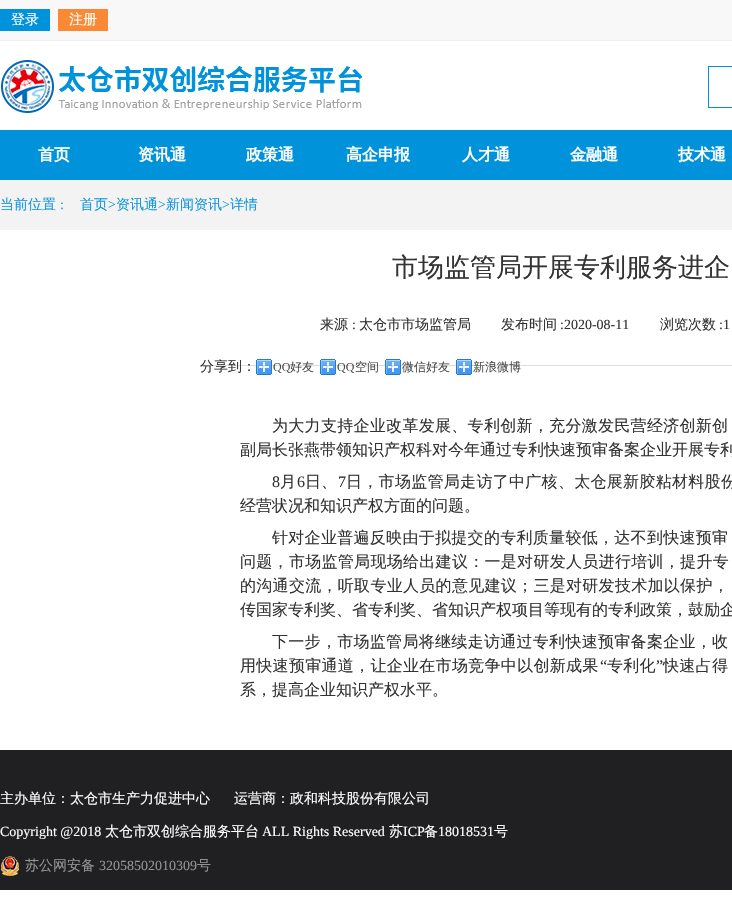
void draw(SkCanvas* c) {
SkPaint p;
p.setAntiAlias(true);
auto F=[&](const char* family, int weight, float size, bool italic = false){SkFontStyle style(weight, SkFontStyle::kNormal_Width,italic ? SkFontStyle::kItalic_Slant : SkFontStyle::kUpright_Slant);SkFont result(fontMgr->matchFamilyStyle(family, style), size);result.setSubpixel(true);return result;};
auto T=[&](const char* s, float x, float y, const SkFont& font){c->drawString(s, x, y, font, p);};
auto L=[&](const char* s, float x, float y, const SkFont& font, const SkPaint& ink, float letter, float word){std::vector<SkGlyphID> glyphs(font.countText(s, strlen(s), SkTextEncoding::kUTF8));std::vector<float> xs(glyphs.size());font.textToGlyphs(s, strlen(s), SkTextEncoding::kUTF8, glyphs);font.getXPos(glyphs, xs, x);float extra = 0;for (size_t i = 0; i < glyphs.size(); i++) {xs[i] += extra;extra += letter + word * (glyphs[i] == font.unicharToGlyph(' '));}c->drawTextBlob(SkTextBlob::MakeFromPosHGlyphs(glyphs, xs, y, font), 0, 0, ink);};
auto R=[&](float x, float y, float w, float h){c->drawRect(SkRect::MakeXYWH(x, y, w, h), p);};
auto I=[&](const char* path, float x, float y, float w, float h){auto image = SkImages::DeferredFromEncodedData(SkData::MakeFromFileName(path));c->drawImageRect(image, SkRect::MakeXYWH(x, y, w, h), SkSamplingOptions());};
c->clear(0xffffffff);
p.setColor(0xfff8f8f8);
R(0,0,732,40);
p.setColor(0xffeeeeee);
R(0,40,732,1);
p.setColor(0xff0092da);
R(0,9,50,22);
auto f1 = F("WenQuanYi Zen Hei",500,14);
p.setColor(0xffffffff);
T("登录",11,24,f1);
p.setColor(0xfffa8936);
R(58,9,50,22);
p.setColor(0xffffffff);
T("注册",69,24,f1);
I("1.png",1,60,362,53);
p.setStroke(true);
p.setStrokeWidth(1);
p.setColor(0xff0092da);
c->drawRect(SkRect::MakeXYWH(708.5,66.5,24,41),p);
p.setStroke(false);
R(0,130,732,50);
auto f2 = F("WenQuanYi Zen Hei",700,16);
p.setColor(0xffffffff);
T("首页",38,160,f2);
T("资讯通",138,160,f2);
T("政策通",246,160,f2);
T("高企申报",346,160,f2);
T("人才通",462,160,f2);
T("金融通",570,160,f2);
T("技术通",678,160,f2);
p.setColor(0xfff3f3f3);
R(0,180,732,50);
p.setColor(0xff1296db);
T("当前位置",0,209,f1);
auto f3 = F("Liberation Serif",400,14);
T(":",60,209,f3);
T("首页",80,209,f1);
T(">",108,209,f3);
T("资讯通",116,209,f1);
T(">",158,209,f3);
T("新闻资讯",166,209,f1);
T(">",222,209,f3);
T("详情",230,209,f1);
auto f4 = F("WenQuanYi Zen Hei",500,26);
p.setColor(0xff333333);
T("市场监管局开展专利服务进企",392,276,f4);
p.setColor(0xffdddddd);
R(200,365,532,1);
p.setColor(0xff333333);
T("来源",320,329,f1);
T(":",352,329,f3);
T("太仓市市场监管局",359,329,f1);
T("发布时间",501,329,f1);
T(":2020-08-11",560,329,f3);
T("浏览次数",660,329,f1);
T(":1",719,329,f3);
T("分享到：",200,371,f1);
I("2.png",256,359,16,16);
auto f5 = F("Liberation Serif",400,12);
p.setColor(0xff4d4d4d);
T("QQ",273,371,f5);
auto f6 = F("WenQuanYi Zen Hei",500,12);
T("好友",290,371,f6);
I("2.png",320,359,16,16);
T("QQ",337,371,f5);
T("空间",355,371,f6);
I("2.png",385,359,16,16);
T("微信好友",402,371,f6);
I("2.png",456,359,16,16);
T("新浪微博",473,371,f6);
auto f7 = F("WenQuanYi Zen Hei",500,16);
p.setColor(0xff333333);
L("为大力支持企业改革发展、专利创新，充分激发民营经济创新创",272,431,f7,p,.3,0);
T("副局长张燕带领知识产权科对今年通过专利快速预审备案企业开展专利",240,455,f7);
auto f8 = F("Liberation Serif",400,16);
T("8",272,487,f8);
T("月",280,487,f7);
T("6",297,487,f8);
T("日、",305,487,f7);
T("7",338,487,f8);
L("日，市场监管局走访了中广核、太仓展新胶粘材料股份",346,487,f7,p,.3,0);
T("经营状况和知识产权方面的问题。",240,511,f7);
L("针对企业普遍反映由于拟提交的专利质量较低，达不到快速预审",272,543,f7,p,.3,0);
L("问题，市场监管局现场给出建议：一是对研发人员进行培训，提升专",240,567,f7,p,.3,0);
L("的沟通交流，听取专业人员的意见建议；三是对研发技术加以保护，",240,591,f7,p,.3,0);
T("传国家专利奖、省专利奖、省知识产权项目等现有的专利政策，鼓励企",240,615,f7);
L("下一步，市场监管局将继续走访通过专利快速预审备案企业，收",272,647,f7,p,.3,0);
L("用快速预审通道，让企业在市场竞争中以创新成果",240,671,f7,p,.3,0);
L("“",600,671,f8,p,.3,0);
L("专利化",607,671,f7,p,.3,0);
L("”",656,671,f8,p,.3,0);
L("快速占得",663,671,f7,p,.3,0);
T("系，提高企业知识产权水平。",240,695,f7);
p.setColor(0xff202022);
R(0,750,732,140);
p.setColor(0xffffffff);
T("主办单位：太仓市生产力促进中心",0,803,f1);
T("运营商：政和科技股份有限公司",234,803,f1);
T("Copyright @2018",0,836,f3);
T("太仓市双创综合服务平台",105,836,f1);
T("ALL Rights Reserved",262,836,f3);
T("苏",389,836,f1);
T("ICP",403,836,f3);
T("备",424,836,f1);
T("18018531",438,836,f3);
T("号",494,836,f1);
I("3.png",1,856,18,20);
p.setColor(0xff939393);
T("苏公网安备",25,870,f1);
T("32058502010309",99,870,f3);
T("号",197,870,f1);
}
